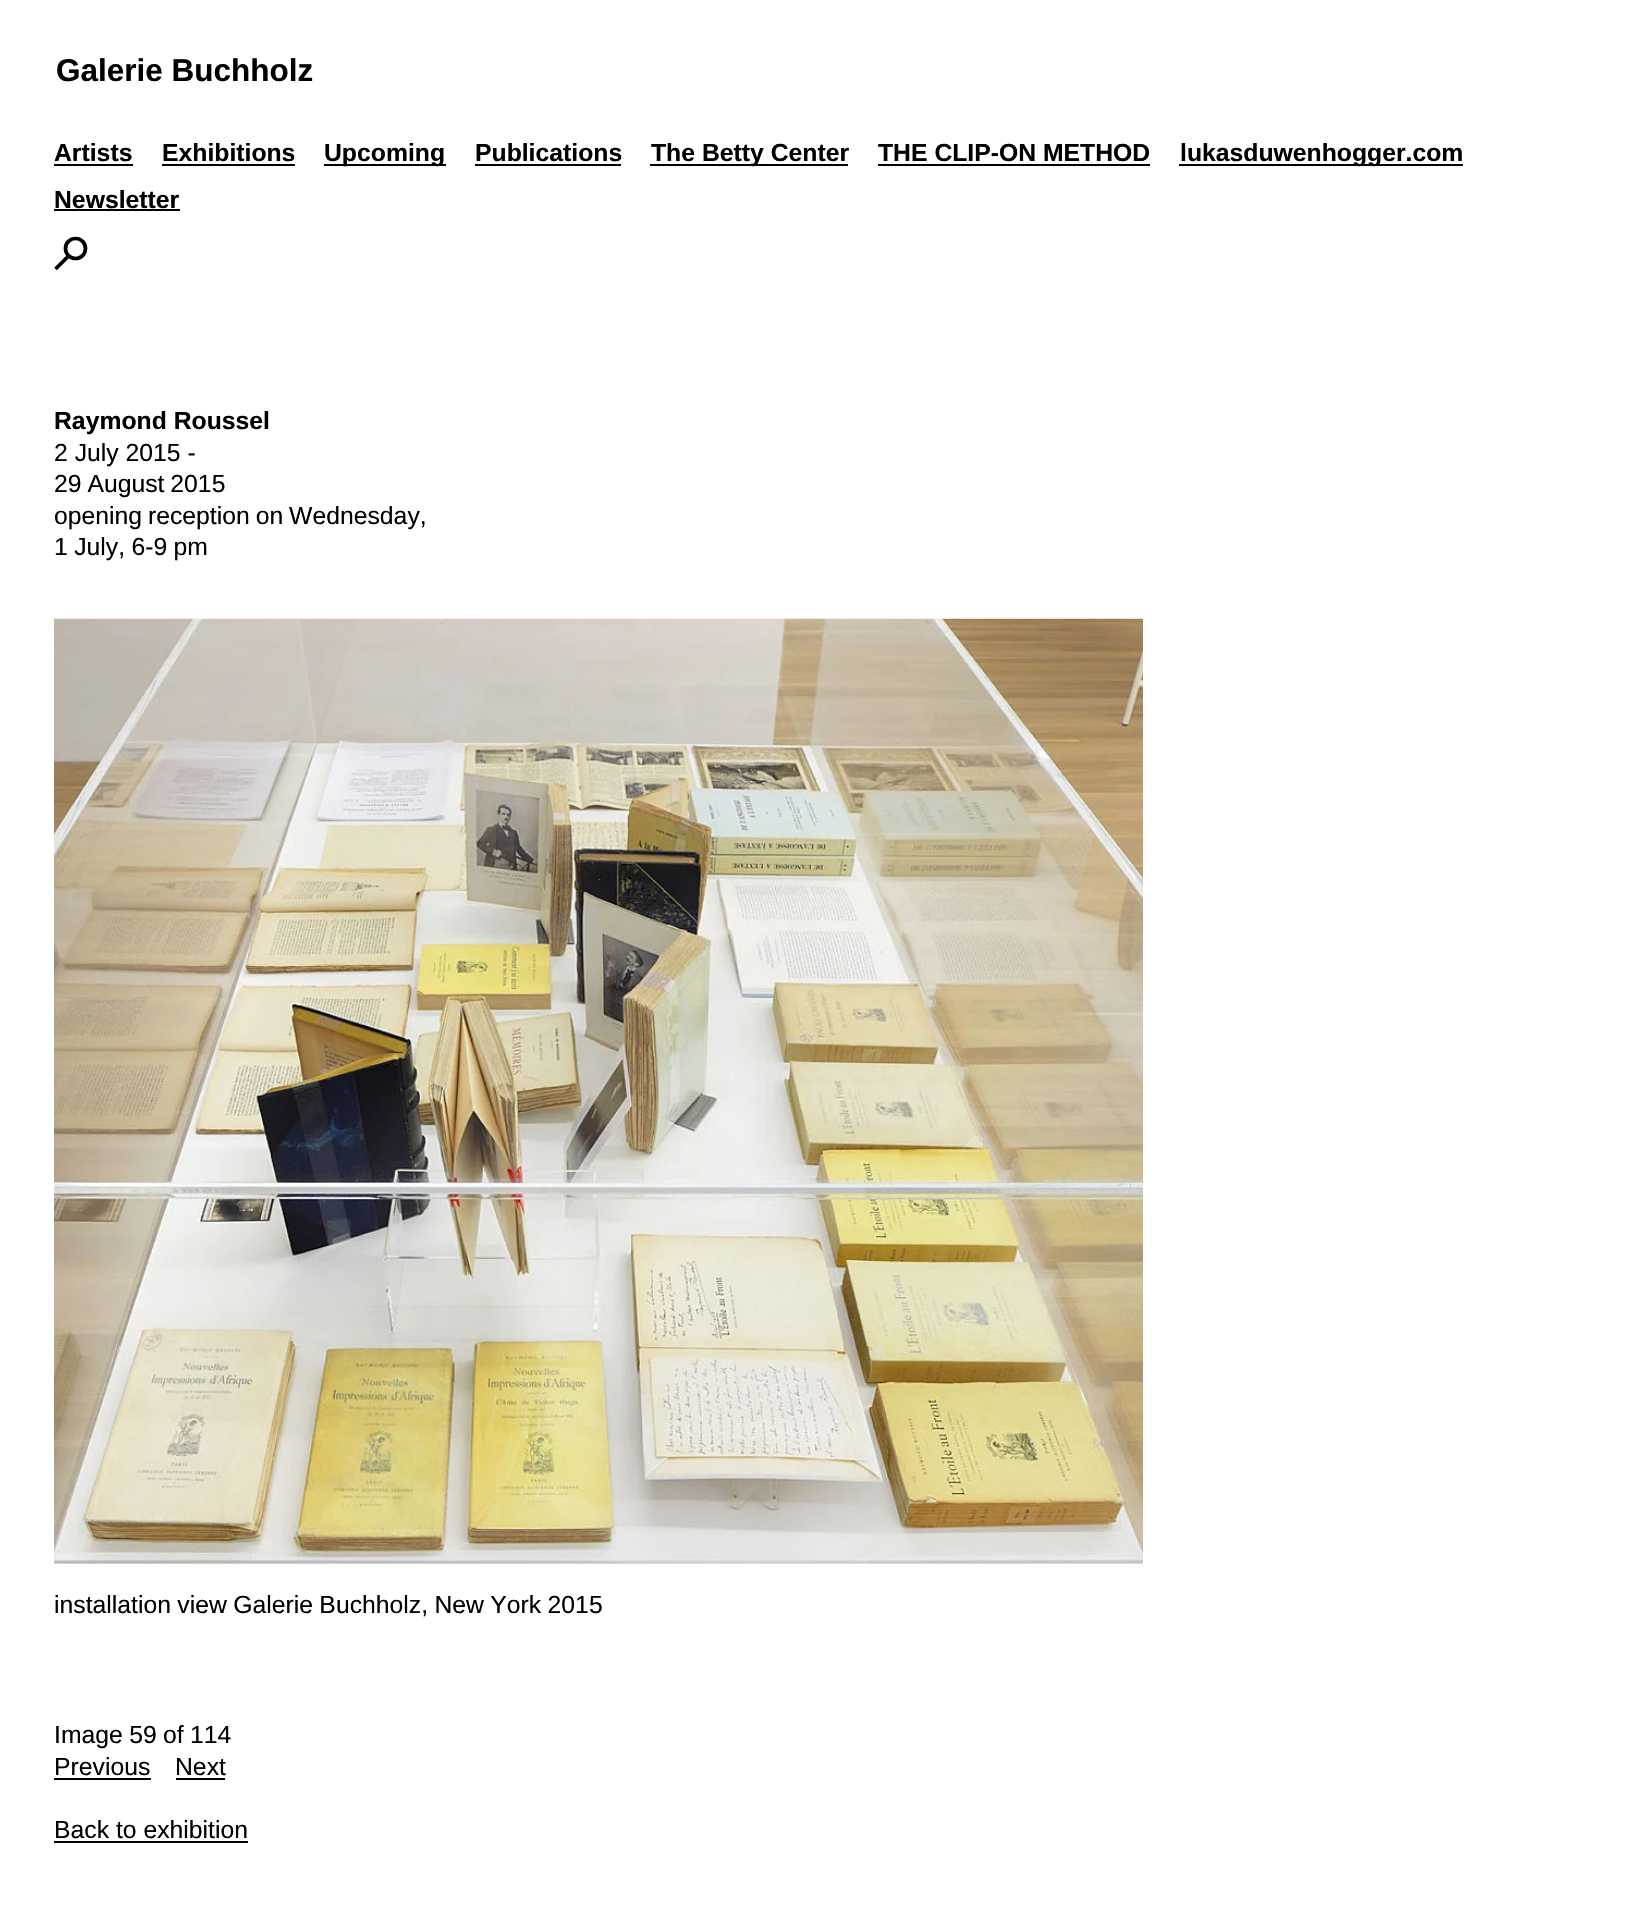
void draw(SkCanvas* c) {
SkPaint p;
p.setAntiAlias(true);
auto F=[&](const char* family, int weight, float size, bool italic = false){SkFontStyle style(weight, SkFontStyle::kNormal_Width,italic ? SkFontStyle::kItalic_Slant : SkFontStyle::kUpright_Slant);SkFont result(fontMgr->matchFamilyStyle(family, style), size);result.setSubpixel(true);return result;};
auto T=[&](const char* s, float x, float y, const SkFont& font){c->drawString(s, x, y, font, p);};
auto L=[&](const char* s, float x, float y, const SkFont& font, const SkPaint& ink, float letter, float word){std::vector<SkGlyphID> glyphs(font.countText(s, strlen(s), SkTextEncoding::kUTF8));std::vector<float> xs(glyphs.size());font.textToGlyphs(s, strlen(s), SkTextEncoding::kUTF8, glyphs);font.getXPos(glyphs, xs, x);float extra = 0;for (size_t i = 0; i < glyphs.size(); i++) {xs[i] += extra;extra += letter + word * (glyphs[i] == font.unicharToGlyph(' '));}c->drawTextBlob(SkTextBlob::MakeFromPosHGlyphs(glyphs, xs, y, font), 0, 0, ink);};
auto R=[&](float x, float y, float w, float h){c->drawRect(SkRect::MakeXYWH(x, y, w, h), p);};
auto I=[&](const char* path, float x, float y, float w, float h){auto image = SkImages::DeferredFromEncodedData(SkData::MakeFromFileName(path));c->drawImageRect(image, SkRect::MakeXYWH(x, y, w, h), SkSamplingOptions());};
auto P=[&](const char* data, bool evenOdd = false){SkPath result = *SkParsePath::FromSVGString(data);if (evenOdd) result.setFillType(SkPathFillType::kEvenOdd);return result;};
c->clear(0xffffffff);
auto f1 = F("Liberation Sans",700,31.5);
p.setColor(0xff000000);
T("Galerie Buchholz",56,81,f1);
auto f2 = F("Liberation Sans",700,24.75);
T("Artists",54,161,f2);
R(54,164,79,2);
T("Exhibitions",162,161,f2);
R(162,164,133,2);
R(324,164,122,2);
T("Upcoming",324,161,f2);
T("Publications",475,161,f2);
R(475,164,146,2);
R(650,164,198,2);
T("The Betty Center",651,161,f2);
T("THE CLIP-ON METHOD",878,161,f2);
R(878,164,272,2);
R(1179,164,284,2);
T("lukasduwenhogger.com",1180,161,f2);
T("Newsletter",54,208,f2);
R(54,209,126,2);
p.setStroke(true);
p.setStrokeWidth(3.7);
c->drawCircle(75.5,248.5,10,p);
c->drawPath(P("M67.5 257l-12 12"),p);
p.setStroke(false);
T("Raymond Roussel",54,429,f2);
auto f3 = F("Liberation Sans",400,24.75);
T("2 July 2015 -",54,461,f3);
L("29 August 2015",54,492,f3,p,0,-1);
L("opening reception on Wednesday,",54,524,f3,p,0,-1);
L("1 July, 6-9 pm",54,555,f3,p,0,-.5);
I("1.png",54,618,1089,946);
L("installation view Galerie Buchholz, New York 2015",54,1613,f3,p,0,-.5);
L("Image 59 of 114",54,1743,f3,p,0,-.5);
T("Previous",54,1775,f3);
R(54,1778,97,2);
T("Next",175,1775,f3);
R(176,1778,49,2);
T("Back to exhibition",54,1838,f3);
R(54,1841,194,2);
}
